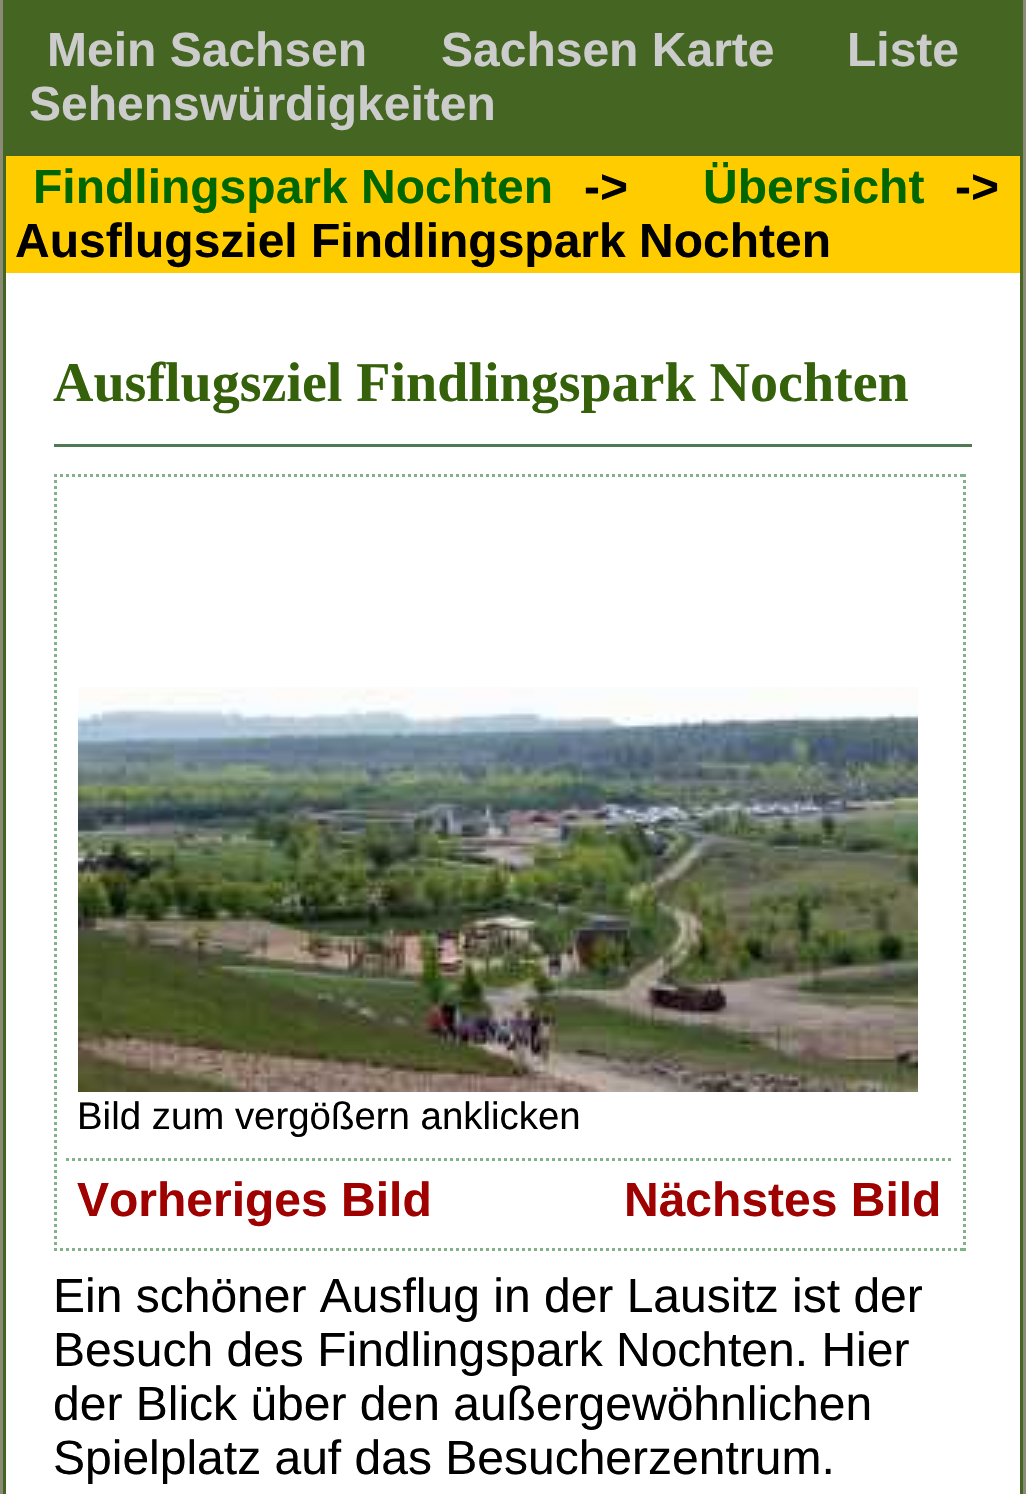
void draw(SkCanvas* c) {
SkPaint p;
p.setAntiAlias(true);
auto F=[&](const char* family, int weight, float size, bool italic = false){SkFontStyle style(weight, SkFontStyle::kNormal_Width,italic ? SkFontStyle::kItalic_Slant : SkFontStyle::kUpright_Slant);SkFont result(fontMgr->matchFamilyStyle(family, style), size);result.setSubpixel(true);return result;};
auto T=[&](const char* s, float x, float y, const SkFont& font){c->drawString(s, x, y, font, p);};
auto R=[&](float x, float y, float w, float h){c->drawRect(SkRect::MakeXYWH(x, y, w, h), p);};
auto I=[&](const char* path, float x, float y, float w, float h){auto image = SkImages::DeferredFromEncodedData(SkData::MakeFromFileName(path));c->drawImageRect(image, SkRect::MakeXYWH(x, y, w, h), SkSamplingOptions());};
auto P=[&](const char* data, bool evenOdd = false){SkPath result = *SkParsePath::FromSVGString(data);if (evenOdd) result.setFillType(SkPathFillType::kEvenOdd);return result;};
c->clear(0xff8a8a75);
p.setColor(0xff446622);
R(1020,0,3,1494);
R(3,0,3,1494);
R(6,0,1014,156);
auto f1 = F("Liberation Sans",700,48);
p.setColor(0xffcccccc);
T("Mein Sachsen",47,66,f1);
T("Sachsen Karte",441,66,f1);
T("Liste",847,66,f1);
T("Sehenswürdigkeiten",29,120,f1);
p.setColor(0xffffcc00);
R(6,156,1014,117);
p.setColor(0xff006600);
T("Findlingspark Nochten",33,203,f1);
p.setColor(0xff000000);
T("->",584,203,f1);
p.setColor(0xff006600);
T("Übersicht",703,203,f1);
p.setColor(0xff000000);
T("->",955,203,f1);
T("Ausflugsziel Findlingspark Nochten",15,257,f1);
p.setColor(0xffffffff);
R(6,273,1014,1221);
p.setColor(0xff4d7953);
R(54,444,918,3);
auto f2 = F("Liberation Serif",700,56);
p.setColor(0xff35610a);
T("Ausflugsziel Findlingspark Nochten",53,401,f2);
p.setStroke(true);
p.setStrokeWidth(3);
p.setColor(0xff83b18a);
p.setPathEffect(SkDashPathEffect::Make({{3,3}}, 0));
c->drawPath(P("M54 475.5h912"),p);
p.setPathEffect(nullptr);
p.setPathEffect(SkDashPathEffect::Make({{3,3}}, 0));
c->drawPath(P("M964.5 474v777"),p);
p.setPathEffect(nullptr);
p.setPathEffect(SkDashPathEffect::Make({{3,3}}, 0));
c->drawPath(P("M54 1249.5h912"),p);
p.setPathEffect(nullptr);
p.setPathEffect(SkDashPathEffect::Make({{3,3}}, 0));
c->drawPath(P("M55.5 474v777"),p);
p.setPathEffect(nullptr);
I("1.png",78,687,840,405);
auto f3 = F("Liberation Sans",400,38.4);
p.setStroke(false);
p.setColor(0xff000000);
T("Bild zum vergößern anklicken",77,1129,f3);
p.setStroke(true);
p.setColor(0xff83b18a);
p.setPathEffect(SkDashPathEffect::Make({{3,3}}, 0));
c->drawPath(P("M66 1159.5h888"),p);
p.setPathEffect(nullptr);
p.setStroke(false);
p.setColor(0xff9f0000);
T("Vorheriges Bild",77,1216,f1);
T("Nächstes Bild",624,1216,f1);
auto f4 = F("Liberation Sans",400,48);
p.setColor(0xff000000);
T("Ein schöner Ausflug in der Lausitz ist der",53,1312,f4);
T("Besuch des Findlingspark Nochten. Hier",53,1366,f4);
T("der Blick über den außergewöhnlichen",53,1420,f4);
T("Spielplatz auf das Besucherzentrum.",53,1474,f4);
}
